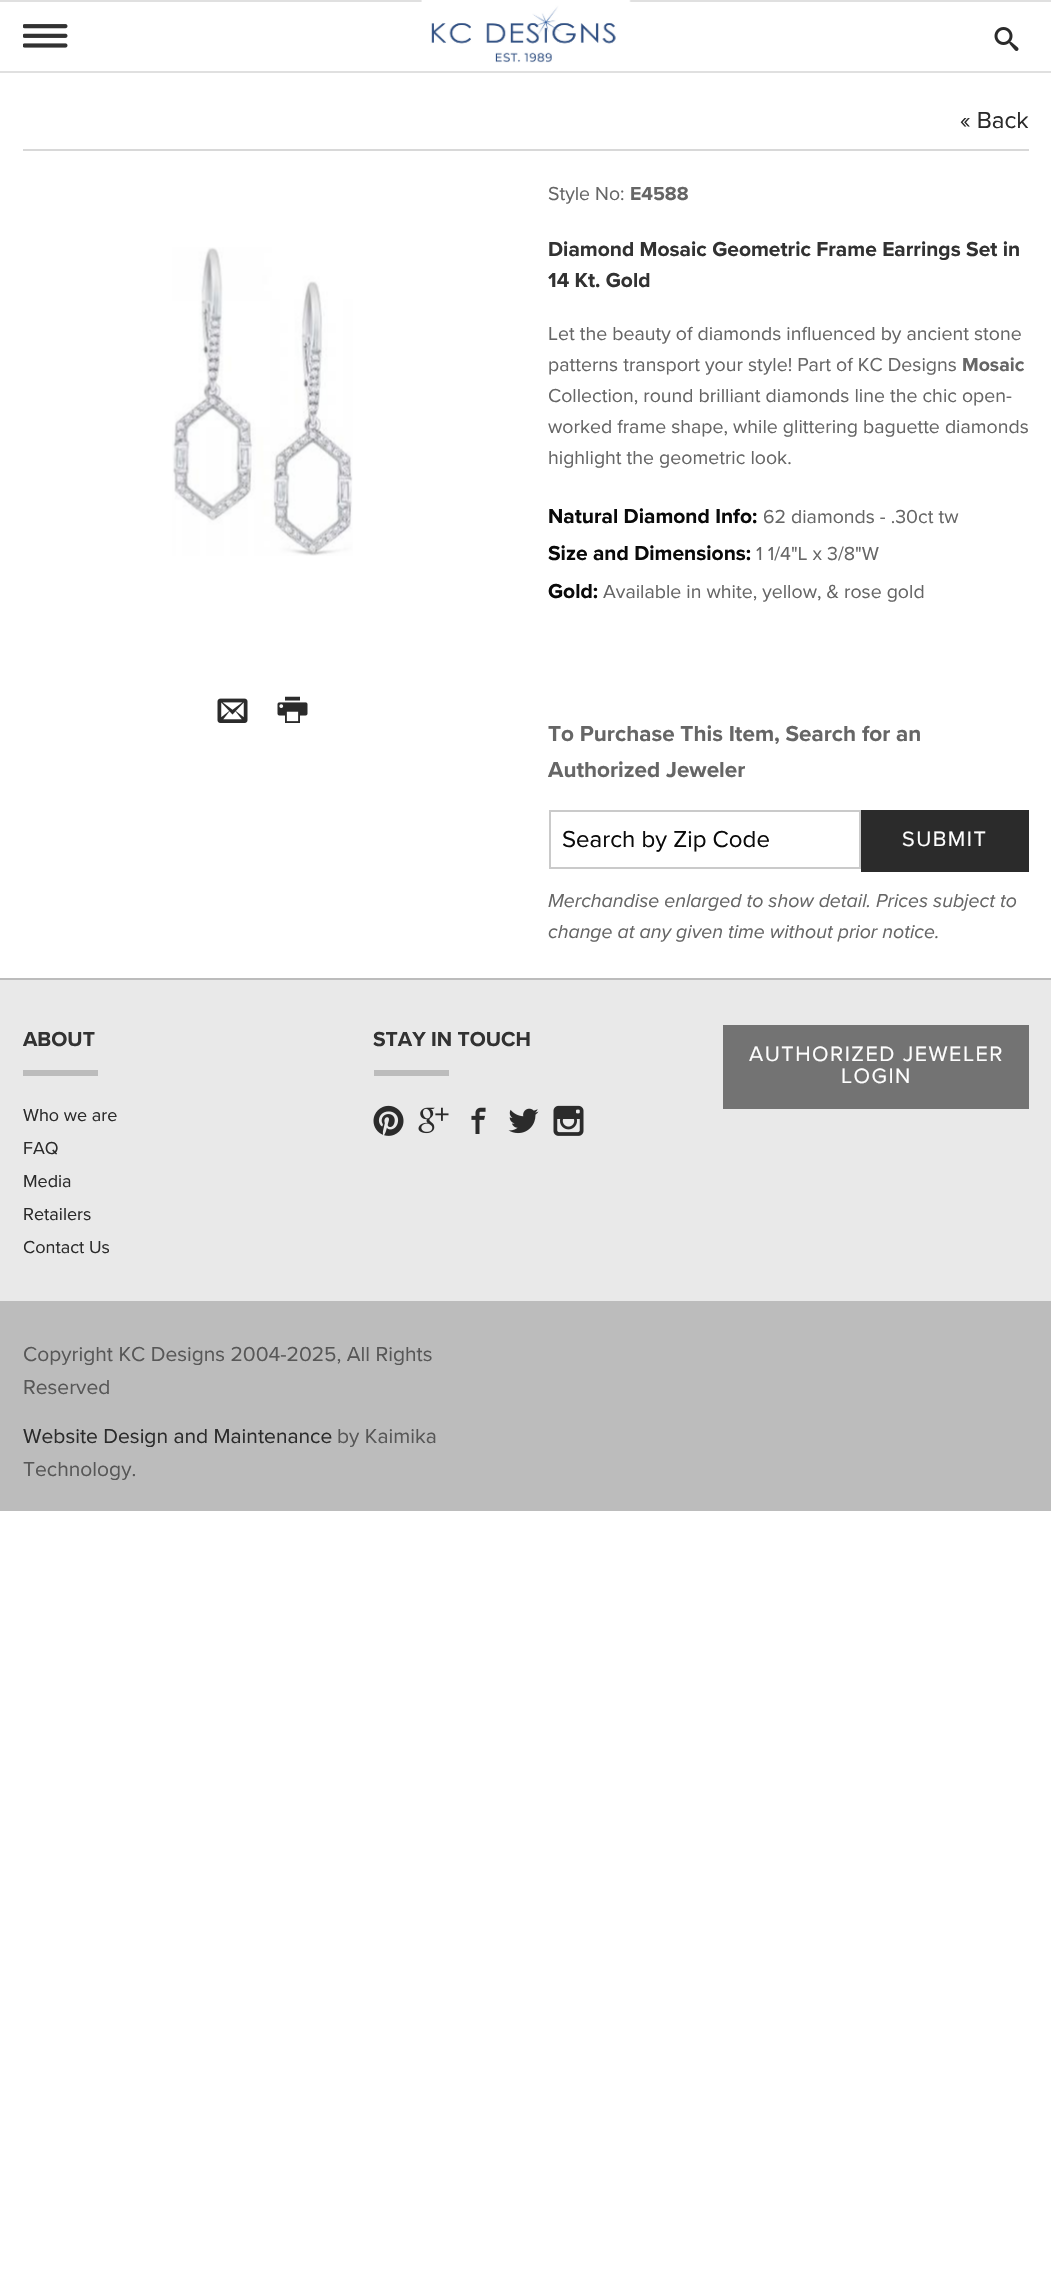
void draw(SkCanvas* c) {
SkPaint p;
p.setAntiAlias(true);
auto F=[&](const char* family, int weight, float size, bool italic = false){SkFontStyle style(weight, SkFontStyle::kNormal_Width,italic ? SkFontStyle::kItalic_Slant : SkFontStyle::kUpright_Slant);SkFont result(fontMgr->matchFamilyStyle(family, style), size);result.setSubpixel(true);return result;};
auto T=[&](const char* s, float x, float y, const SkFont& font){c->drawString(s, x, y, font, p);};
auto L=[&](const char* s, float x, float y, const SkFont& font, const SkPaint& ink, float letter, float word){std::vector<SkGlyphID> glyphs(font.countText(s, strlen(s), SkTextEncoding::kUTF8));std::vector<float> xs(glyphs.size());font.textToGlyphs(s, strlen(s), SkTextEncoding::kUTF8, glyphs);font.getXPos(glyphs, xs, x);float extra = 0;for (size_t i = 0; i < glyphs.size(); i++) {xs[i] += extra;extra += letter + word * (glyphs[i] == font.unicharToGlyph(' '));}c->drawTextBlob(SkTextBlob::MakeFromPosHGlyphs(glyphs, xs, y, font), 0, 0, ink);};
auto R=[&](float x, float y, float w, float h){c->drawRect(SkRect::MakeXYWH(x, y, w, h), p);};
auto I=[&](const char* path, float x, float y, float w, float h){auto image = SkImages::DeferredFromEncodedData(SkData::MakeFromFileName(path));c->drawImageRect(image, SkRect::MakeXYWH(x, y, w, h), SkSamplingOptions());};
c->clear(0xffffffff);
p.setColor(0xffe0e0e0);
R(0,0,1051,2);
R(0,71,1051,2);
I("1.png",23,24,45,24);
I("2.png",994,27,25,24);
I("3.png",421,0,210,63);
p.setColor(0xffd8d8d8);
R(23,149,1006,2);
auto f1 = F("Proxima Nova",400,24);
p.setColor(0xff2b2b2b);
T("« Back",960,128,f1);
I("4.png",172,247,181,309);
I("5.png",217,698,31,25);
I("6.png",277,696,31,27);
auto f2 = F("Proxima Nova",400,19.5);
p.setColor(0xff666666);
T("Style No:",548,200,f2);
auto f3 = F("Proxima Nova",700,19.5);
T("E4588",630,200,f3);
auto f4 = F("Proxima Nova",700,21);
p.setColor(0xff323232);
T("Diamond Mosaic Geometric Frame Earrings Set in",548,256,f4);
T("14 Kt. Gold",548,287,f4);
p.setColor(0xff666666);
T("Let the beauty of diamonds influenced by ancient stone",548,340,f2);
T("patterns transport your style! Part of KC Designs",548,371,f2);
T("Mosaic",962,371,f3);
T("Collection, round brilliant diamonds line the chic open-",548,402,f2);
T("worked frame shape, while glittering baguette diamonds",548,433,f2);
T("highlight the geometric look.",548,464,f2);
p.setColor(0xff0a0a0a);
T("Natural Diamond Info:",548,523,f4);
p.setColor(0xff666666);
T("62 diamonds - .30ct tw",763,523,f2);
p.setColor(0xff0a0a0a);
T("Size and Dimensions:",548,560,f4);
p.setColor(0xff666666);
T("1 1/4\"L x 3/8\"W",756,560,f2);
p.setColor(0xff0a0a0a);
T("Gold:",548,598,f4);
p.setColor(0xff666666);
T("Available in white, yellow, & rose gold",603,598,f2);
auto f5 = F("Proxima Nova",700,22.5);
T("To Purchase This Item, Search for an",548,741,f5);
T("Authorized Jeweler",548,777,f5);
p.setStroke(true);
p.setStrokeWidth(2);
p.setColor(0xffcacaca);
c->drawRect(SkRect::MakeXYWH(550,811,310,57),p);
p.setStroke(false);
p.setColor(0xff0a0a0a);
T("Search by Zip Code",562,847,f1);
p.setColor(0xff2b2b2b);
R(861,810,168,62);
auto f6 = F("Proxima Nova",400,21.6);
p.setColor(0xfffefefe);
L("SUBMIT",902,846,f6,p,1.5,0);
auto f7 = F("Proxima Nova",400,19.5,true);
p.setColor(0xff666666);
T("Merchandise enlarged to show detail. Prices subject to",548,907,f7);
T("change at any given time without prior notice.",548,938,f7);
p.setColor(0xffe9e9e9);
R(0,980,1051,321);
p.setColor(0xffbcbcbc);
R(0,978,1051,2);
p.setColor(0xff323232);
T("ABOUT",23,1046,f4);
p.setColor(0xffbcbcbc);
R(23,1070,75,6);
auto f8 = F("Proxima Nova",400,18);
p.setColor(0xff2b2b2b);
T("Who we are",23,1121,f8);
T("FAQ",23,1154,f8);
T("Media",23,1187,f8);
T("Retailers",23,1220,f8);
T("Contact Us",23,1253,f8);
p.setColor(0xff323232);
T("STAY IN TOUCH",373,1046,f4);
p.setColor(0xffbcbcbc);
R(374,1070,75,6);
I("7.png",373,1105,31,31);
I("8.png",418,1107,31,27);
I("9.png",471,1107,15,27);
I("10.png",508,1108,31,26);
I("11.png",553,1105,31,31);
p.setColor(0xff737373);
R(723,1025,306,84);
p.setColor(0xfffefefe);
L("AUTHORIZED JEWELER",749,1061,f6,p,1.5,0);
L("LOGIN",841,1083,f6,p,1.5,0);
p.setColor(0xffbcbcbc);
R(0,1301,1051,210);
auto f9 = F("Proxima Nova",400,21);
p.setColor(0xff575757);
T("Copyright KC Designs 2004-2025, All Rights",23,1361,f9);
T("Reserved",23,1394,f9);
p.setColor(0xff2b2b2b);
T("Website Design and Maintenance",23,1443,f9);
p.setColor(0xff575757);
T("by Kaimika",337,1443,f9);
T("Technology.",23,1476,f9);
}
